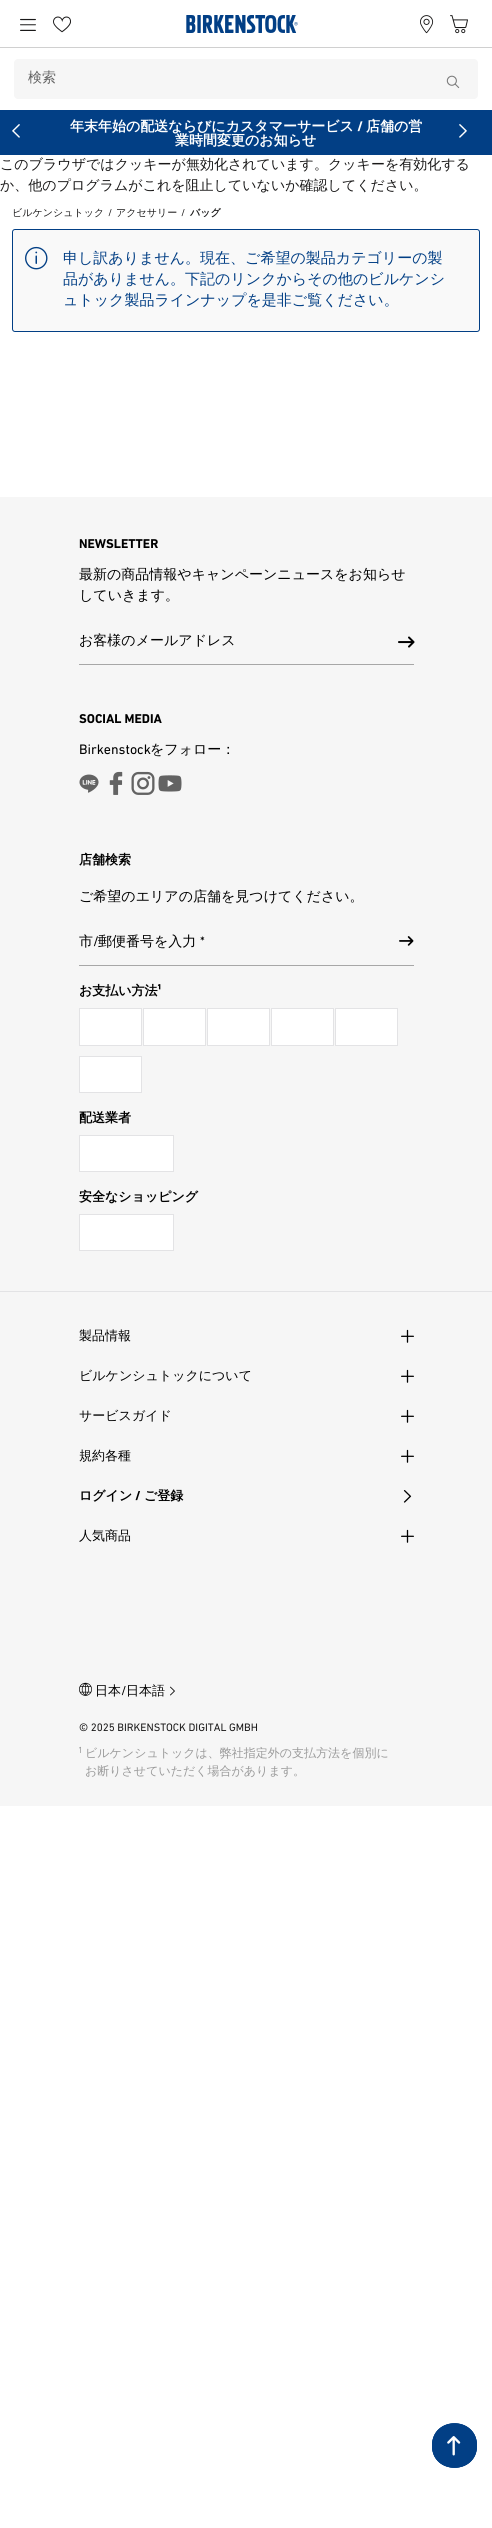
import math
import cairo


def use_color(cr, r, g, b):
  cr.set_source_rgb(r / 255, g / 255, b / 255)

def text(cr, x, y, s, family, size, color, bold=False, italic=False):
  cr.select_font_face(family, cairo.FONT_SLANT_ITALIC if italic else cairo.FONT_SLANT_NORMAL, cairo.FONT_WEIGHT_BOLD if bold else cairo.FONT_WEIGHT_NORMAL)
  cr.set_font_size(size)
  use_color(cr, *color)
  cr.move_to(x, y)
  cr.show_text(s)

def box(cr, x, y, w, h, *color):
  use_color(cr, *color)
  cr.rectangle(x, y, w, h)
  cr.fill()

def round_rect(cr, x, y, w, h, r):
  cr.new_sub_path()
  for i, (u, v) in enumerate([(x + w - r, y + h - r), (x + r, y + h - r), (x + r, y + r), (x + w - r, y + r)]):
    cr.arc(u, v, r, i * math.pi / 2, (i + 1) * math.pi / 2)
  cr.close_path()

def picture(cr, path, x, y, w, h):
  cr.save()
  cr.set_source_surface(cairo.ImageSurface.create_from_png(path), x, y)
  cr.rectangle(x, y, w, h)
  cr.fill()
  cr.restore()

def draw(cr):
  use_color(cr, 255, 255, 255)
  cr.paint()
  box(cr, 0, 47, 492, 1, 208, 208, 208)
  picture(cr, "img_01.png", 20, 18, 16, 13)
  picture(cr, "img_02.png", 53, 16, 18, 17)
  picture(cr, "img_03.png", 186, 15, 112, 18)
  picture(cr, "img_04.png", 420, 15, 14, 19)
  picture(cr, "img_05.png", 450, 15, 18, 19)
  use_color(cr, 246, 246, 246)
  round_rect(cr, 14, 59, 464, 40, 4)
  cr.fill()
  picture(cr, "img_06.png", 446, 75, 14, 14)
  box(cr, 0, 110, 492, 45, 2, 63, 133)
  picture(cr, "img_07.png", 12, 124, 8, 14)
  picture(cr, "img_08.png", 459, 124, 8, 14)
  use_color(cr, 249, 249, 249)
  round_rect(cr, 12.5, 229.5, 467, 102, 2.5)
  cr.fill_preserve()
  use_color(cr, 2, 63, 133)
  cr.set_line_width(1)
  cr.stroke()
  picture(cr, "img_09.png", 25, 246, 23, 24)
  cr.new_path()
  cr.move_to(476.5, 2445.5)
  cr.curve_to(476.5, 2474.5, 432.5, 2474.5, 432.5, 2445.5)
  cr.curve_to(432.5, 2416.5, 476.5, 2416.5, 476.5, 2445.5)
  cr.close_path()
  cr.stroke()
  box(cr, 0, 497, 492, 1309, 246, 246, 246)
  box(cr, 79, 664, 335, 1, 167, 167, 167)
  picture(cr, "img_10.png", 398, 636, 17, 12)
  picture(cr, "img_11.png", 79, 774, 20, 19)
  picture(cr, "img_12.png", 109, 771, 14, 24)
  picture(cr, "img_13.png", 131, 771, 24, 24)
  picture(cr, "img_14.png", 158, 775, 24, 17)
  box(cr, 79, 965, 335, 1, 167, 167, 167)
  picture(cr, "img_15.png", 399, 936, 15, 10)
  use_color(cr, 255, 255, 255)
  cr.rectangle(79.5, 1008.5, 62, 37)
  cr.fill_preserve()
  use_color(cr, 227, 227, 229)
  cr.stroke()
  use_color(cr, 255, 255, 255)
  cr.rectangle(143.5, 1008.5, 62, 37)
  cr.fill_preserve()
  use_color(cr, 227, 227, 229)
  cr.stroke()
  use_color(cr, 255, 255, 255)
  cr.rectangle(207.5, 1008.5, 62, 37)
  cr.fill_preserve()
  use_color(cr, 227, 227, 229)
  cr.stroke()
  use_color(cr, 255, 255, 255)
  cr.rectangle(271.5, 1008.5, 62, 37)
  cr.fill_preserve()
  use_color(cr, 227, 227, 229)
  cr.stroke()
  use_color(cr, 255, 255, 255)
  cr.rectangle(335.5, 1008.5, 62, 37)
  cr.fill_preserve()
  use_color(cr, 227, 227, 229)
  cr.stroke()
  use_color(cr, 255, 255, 255)
  cr.rectangle(79.5, 1056.5, 62, 36)
  cr.fill_preserve()
  use_color(cr, 227, 227, 229)
  cr.stroke()
  use_color(cr, 255, 255, 255)
  cr.rectangle(79.5, 1135.5, 94, 36)
  cr.fill_preserve()
  use_color(cr, 227, 227, 229)
  cr.stroke()
  use_color(cr, 255, 255, 255)
  cr.rectangle(79.5, 1214.5, 94, 36)
  cr.fill_preserve()
  use_color(cr, 227, 227, 229)
  cr.stroke()
  box(cr, 0, 1291, 492, 1, 227, 227, 229)
  picture(cr, "img_16.png", 401, 1329, 13, 14)
  picture(cr, "img_16.png", 401, 1369, 13, 14)
  picture(cr, "img_16.png", 401, 1409, 13, 14)
  picture(cr, "img_16.png", 401, 1449, 13, 14)
  picture(cr, "img_17.png", 403, 1490, 9, 13)
  picture(cr, "img_16.png", 401, 1529, 13, 14)
  picture(cr, "img_18.png", 79, 1682, 13, 14)
  picture(cr, "img_19.png", 170, 1686, 5, 10)
  use_color(cr, 2, 63, 133)
  cr.new_path()
  cr.move_to(477, 2446)
  cr.curve_to(477, 2475, 432, 2475, 432, 2446)
  cr.curve_to(432, 2416, 477, 2416, 477, 2446)
  cr.close_path()
  cr.fill()
  cr.new_path()
  cr.move_to(476.5, 2445.5)
  cr.curve_to(476.5, 2474.5, 432.5, 2474.5, 432.5, 2445.5)
  cr.curve_to(432.5, 2416.5, 476.5, 2416.5, 476.5, 2445.5)
  cr.close_path()
  cr.stroke()
  picture(cr, "img_20.png", 447, 2436, 14, 20)
  text(cr, 28, 82, "検索", "WenQuanYi Zen Hei Medium", 14, (99, 99, 99))
  text(cr, 70, 131, "年末年始の配送ならびにカスタマーサービス", "WenQuanYi Zen Hei", 14, (255, 255, 255), bold=True)
  text(cr, 357, 131, "/", "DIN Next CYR", 14, (255, 255, 255), bold=True)
  text(cr, 366, 131, "店舗の営", "WenQuanYi Zen Hei", 14, (255, 255, 255), bold=True)
  text(cr, 175, 145, "業時間変更のお知らせ", "WenQuanYi Zen Hei", 14, (255, 255, 255), bold=True)
  text(cr, 0, 169, "このブラウザではクッキーが無効化されています。クッキーを有効化する", "WenQuanYi Zen Hei Medium", 14, (26, 25, 25))
  text(cr, 0, 190, "か、他のプログラムがこれを阻止していないか確認してください。", "WenQuanYi Zen Hei Medium", 14, (26, 25, 25))
  text(cr, 12, 216, "ビルケンシュトック", "WenQuanYi Zen Hei Medium", 10, (26, 25, 25))
  text(cr, 108, 216, "/", "DIN Next CYR", 10, (26, 25, 25))
  text(cr, 116, 216, "アクセサリー", "WenQuanYi Zen Hei Medium", 10, (26, 25, 25))
  text(cr, 181, 216, "/", "DIN Next CYR", 10, (26, 25, 25))
  text(cr, 190, 216, "バッグ", "WenQuanYi Zen Hei", 10, (26, 25, 25), bold=True)
  text(cr, 63, 263, "申し訳ありません。現在、ご希望の製品カテゴリーの製", "WenQuanYi Zen Hei Medium", 15, (2, 63, 133))
  text(cr, 63, 284, "品がありません。下記のリンクからその他のビルケンシ", "WenQuanYi Zen Hei Medium", 15, (2, 63, 133))
  text(cr, 63, 305, "ュトック製品ラインナップを是非ご覧ください。", "WenQuanYi Zen Hei Medium", 15, (2, 63, 133))
  text(cr, 79, 548, "NEWSLETTER", "DIN Next CYR", 13, (0, 0, 0), bold=True)
  text(cr, 79, 579, "最新の商品情報やキャンペーンニュースをお知らせ", "WenQuanYi Zen Hei Medium", 14, (0, 0, 0))
  text(cr, 79, 600, "していきます。", "WenQuanYi Zen Hei Medium", 14, (0, 0, 0))
  text(cr, 79, 645, "お客様のメールアドレス", "WenQuanYi Zen Hei Medium", 14, (0, 0, 0))
  text(cr, 79, 723, "SOCIAL MEDIA", "DIN Next CYR", 13, (0, 0, 0), bold=True)
  text(cr, 79, 754, "Birkenstock", "DIN Next CYR", 14, (0, 0, 0))
  text(cr, 150, 754, "をフォロー：", "WenQuanYi Zen Hei Medium", 14, (0, 0, 0))
  text(cr, 79, 864, "店舗検索", "WenQuanYi Zen Hei", 13, (0, 0, 0), bold=True)
  text(cr, 79, 901, "ご希望のエリアの店舗を見つけてください。", "WenQuanYi Zen Hei Medium", 14, (0, 0, 0))
  text(cr, 79, 946, "市", "WenQuanYi Zen Hei Medium", 14, (0, 0, 0))
  text(cr, 93, 946, "/", "DIN Next CYR", 14, (0, 0, 0))
  text(cr, 98, 946, "郵便番号を入力", "WenQuanYi Zen Hei Medium", 14, (0, 0, 0))
  text(cr, 200, 946, "*", "DIN Next CYR", 14, (0, 0, 0))
  text(cr, 79, 995, "お支払い方法", "WenQuanYi Zen Hei", 13, (0, 0, 0), bold=True)
  text(cr, 157, 995, "¹", "DIN Next CYR", 13, (0, 0, 0), bold=True)
  text(cr, 79, 1122, "配送業者", "WenQuanYi Zen Hei", 13, (0, 0, 0), bold=True)
  text(cr, 79, 1201, "安全なショッピング", "WenQuanYi Zen Hei", 13, (0, 0, 0), bold=True)
  text(cr, 79, 1340, "製品情報", "WenQuanYi Zen Hei Medium", 13, (0, 0, 0))
  text(cr, 79, 1380, "ビルケンシュトックについて", "WenQuanYi Zen Hei Medium", 13, (0, 0, 0))
  text(cr, 79, 1420, "サービスガイド", "WenQuanYi Zen Hei Medium", 13, (0, 0, 0))
  text(cr, 79, 1460, "規約各種", "WenQuanYi Zen Hei Medium", 13, (0, 0, 0))
  text(cr, 79, 1500, "ログイン", "WenQuanYi Zen Hei", 13, (0, 0, 0), bold=True)
  text(cr, 135, 1500, "/", "DIN Next CYR", 13, (0, 0, 0), bold=True)
  text(cr, 144, 1500, "ご登録", "WenQuanYi Zen Hei", 13, (0, 0, 0), bold=True)
  text(cr, 79, 1540, "人気商品", "WenQuanYi Zen Hei Medium", 13, (0, 0, 0))
  text(cr, 95, 1695, "日本", "WenQuanYi Zen Hei Medium", 13, (0, 0, 0))
  text(cr, 121, 1695, "/", "DIN Next CYR", 13, (0, 0, 0))
  text(cr, 126, 1695, "日本語", "WenQuanYi Zen Hei Medium", 13, (0, 0, 0))
  text(cr, 79, 1731, "© 2025 BIRKENSTOCK DIGITAL GMBH", "DIN Next CYR", 11, (26, 25, 25))
  text(cr, 78, 1753, "1", "DIN Next CYR", 9, (154, 154, 154))
  text(cr, 85, 1757, "ビルケンシュトックは、弊社指定外の支払方法を個別に", "WenQuanYi Zen Hei Medium", 12, (154, 154, 154))
  text(cr, 85, 1775, "お断りさせていただく場合があります。", "WenQuanYi Zen Hei Medium", 12, (154, 154, 154))


surface = cairo.ImageSurface(cairo.FORMAT_RGB24, 492, 2528)
cr = cairo.Context(surface)
options = cairo.FontOptions()
options.set_hint_metrics(cairo.HINT_METRICS_OFF)
options.set_hint_style(cairo.HINT_STYLE_NONE)
cr.set_font_options(options)
cr.set_miter_limit(4)
draw(cr)
surface.write_to_png("out.png")
